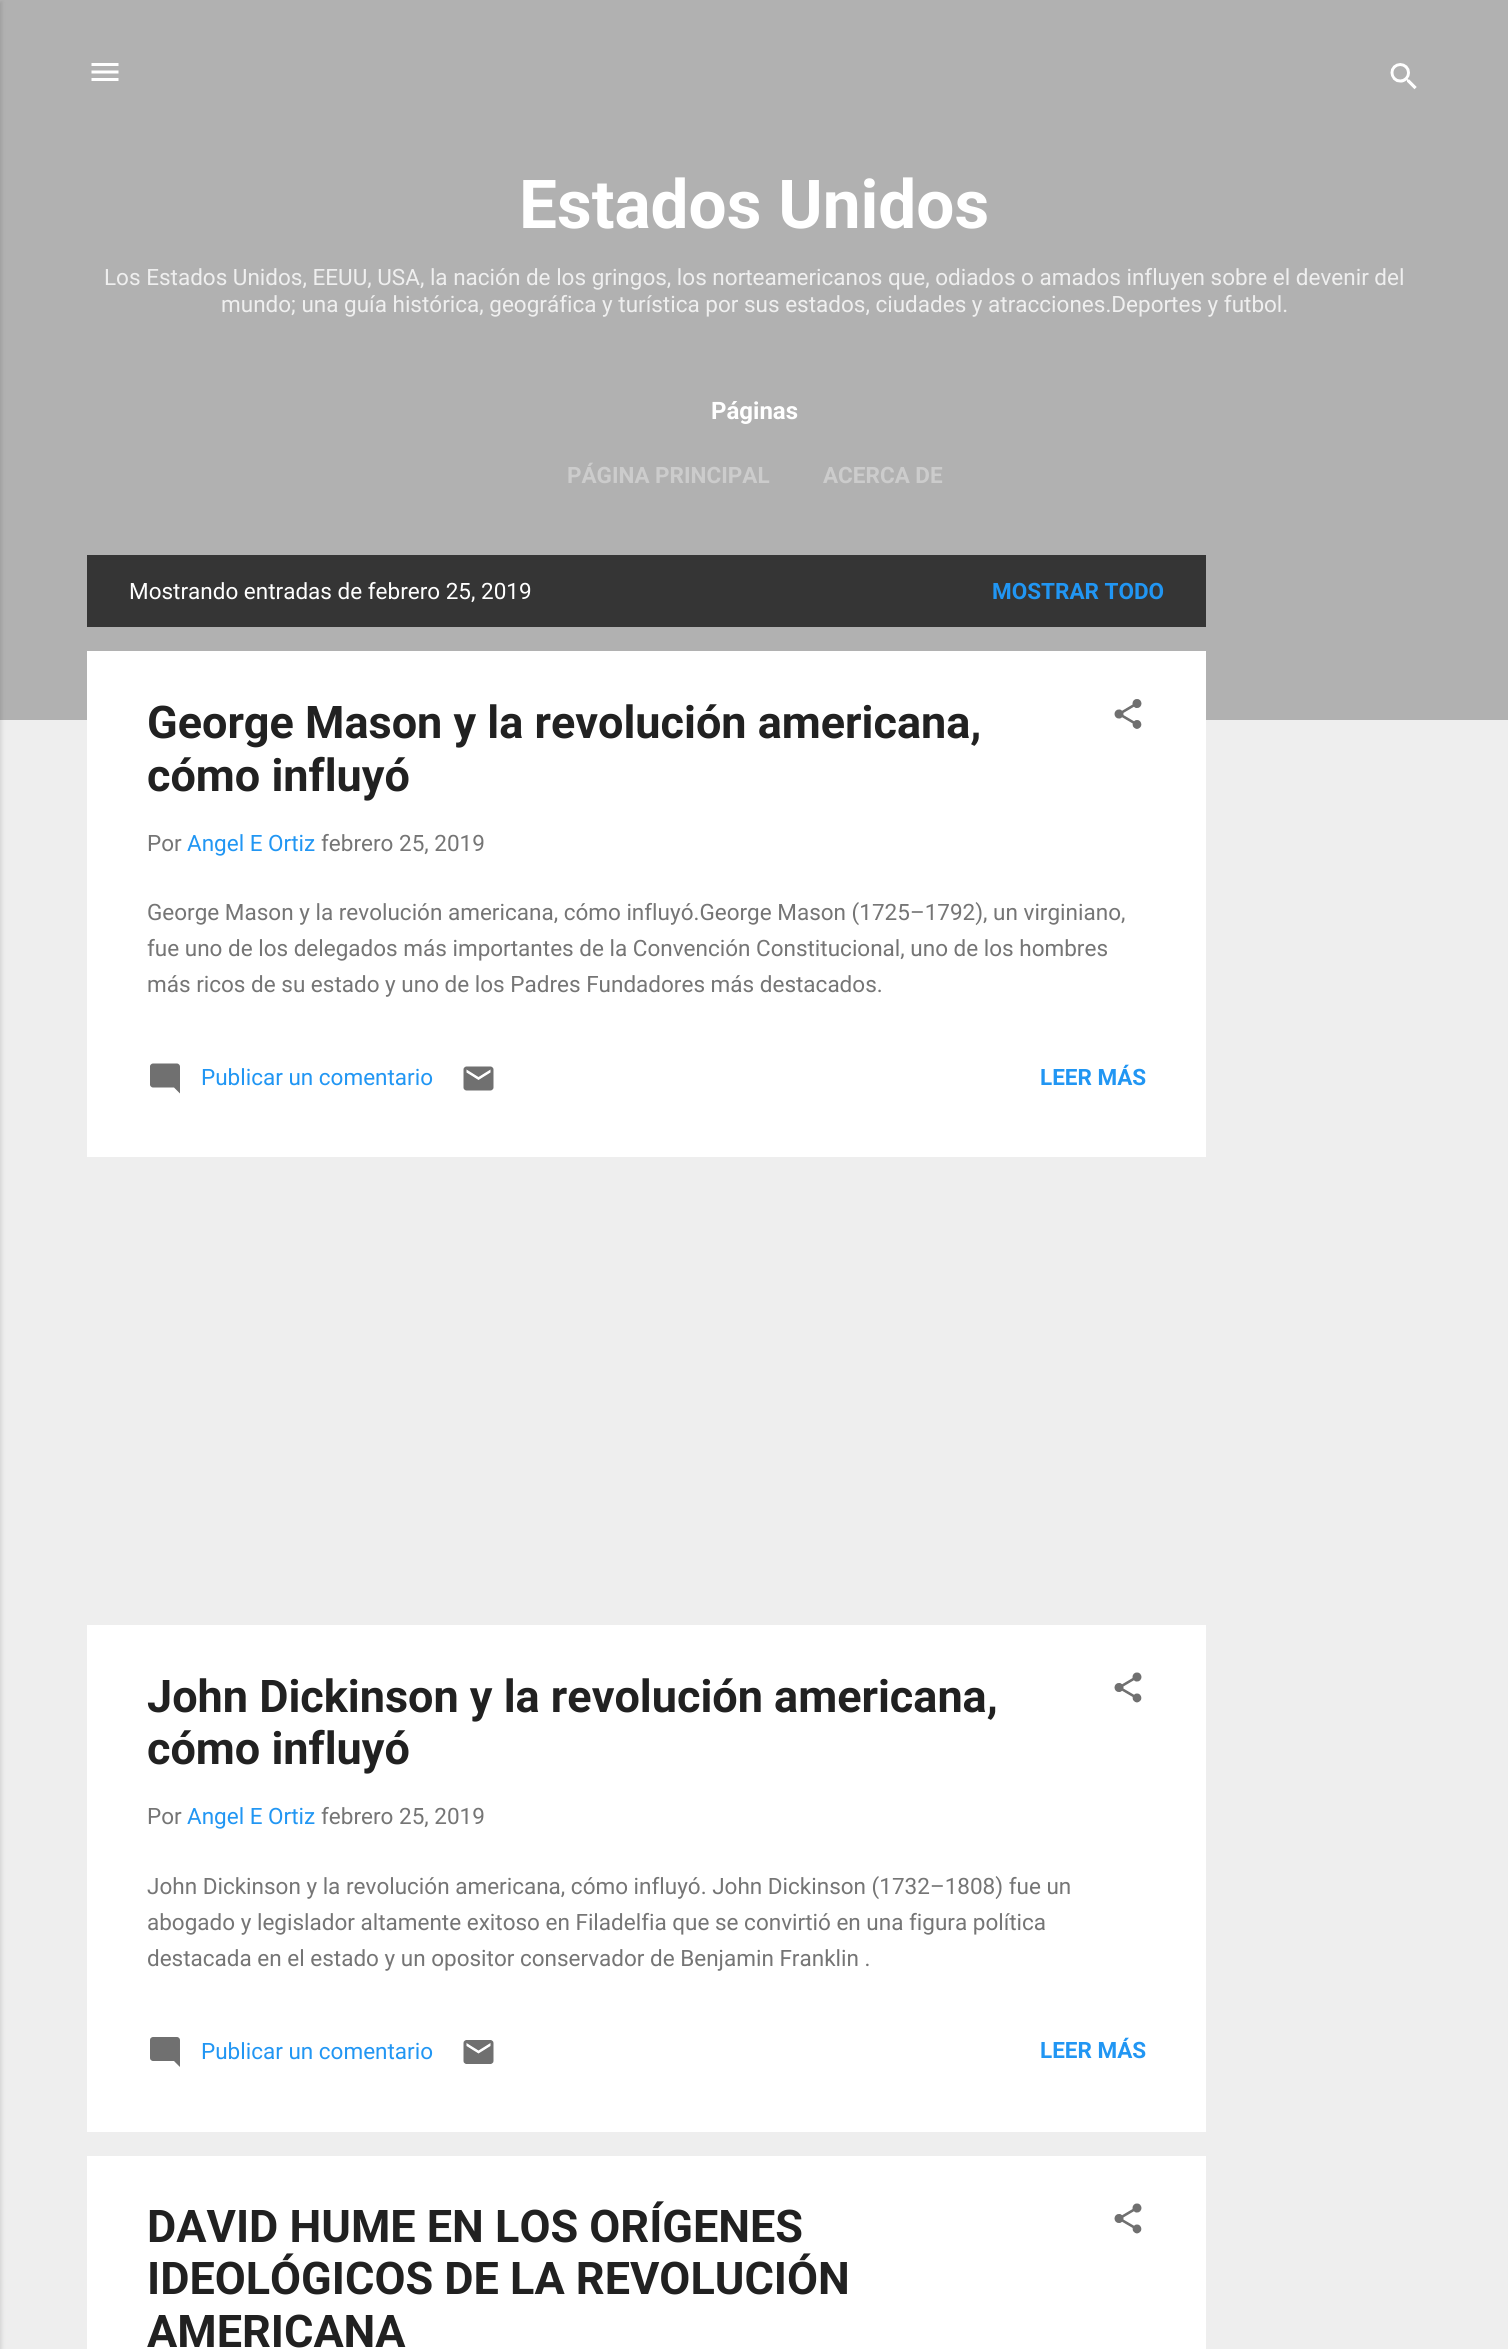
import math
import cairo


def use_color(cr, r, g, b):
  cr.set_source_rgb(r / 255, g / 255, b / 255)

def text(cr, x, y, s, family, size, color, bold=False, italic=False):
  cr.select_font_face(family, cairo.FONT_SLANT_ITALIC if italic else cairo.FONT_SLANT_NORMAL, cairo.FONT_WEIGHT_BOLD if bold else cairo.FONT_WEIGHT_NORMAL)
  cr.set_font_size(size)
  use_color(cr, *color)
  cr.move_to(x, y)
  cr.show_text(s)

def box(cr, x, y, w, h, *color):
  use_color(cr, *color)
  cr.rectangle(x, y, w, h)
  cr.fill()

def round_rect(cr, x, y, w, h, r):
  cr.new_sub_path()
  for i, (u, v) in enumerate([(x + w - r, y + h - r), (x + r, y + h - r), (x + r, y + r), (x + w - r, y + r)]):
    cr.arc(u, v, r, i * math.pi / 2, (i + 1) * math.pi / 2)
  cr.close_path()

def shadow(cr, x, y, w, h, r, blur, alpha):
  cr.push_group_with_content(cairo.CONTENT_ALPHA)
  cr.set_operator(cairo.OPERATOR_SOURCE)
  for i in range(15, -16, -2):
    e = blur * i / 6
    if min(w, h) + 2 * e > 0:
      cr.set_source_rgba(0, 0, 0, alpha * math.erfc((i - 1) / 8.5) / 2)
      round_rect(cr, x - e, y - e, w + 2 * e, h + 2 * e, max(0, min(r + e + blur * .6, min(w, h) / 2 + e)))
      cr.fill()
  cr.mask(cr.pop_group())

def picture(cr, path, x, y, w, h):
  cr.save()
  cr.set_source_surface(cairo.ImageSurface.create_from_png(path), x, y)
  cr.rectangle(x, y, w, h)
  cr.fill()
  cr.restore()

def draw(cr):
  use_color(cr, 238, 238, 238)
  cr.paint()
  box(cr, 0, 0, 1508, 720, 177, 177, 177)
  use_color(cr, 0, 0, 0)
  shadow(cr, -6, 2, 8, 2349, 0, 2, 0.1)
  picture(cr, "img_01.png", 91, 63, 28, 18)
  picture(cr, "img_02.png", 1390, 63, 27, 27)
  box(cr, 87, 555, 1119, 72, 53, 53, 53)
  box(cr, 87, 651, 1119, 506, 255, 255, 255)
  picture(cr, "img_03.png", 1114, 699, 28, 30)
  picture(cr, "img_04.png", 150, 1063, 30, 31)
  picture(cr, "img_05.png", 463, 1066, 31, 25)
  box(cr, 87, 1625, 1119, 507, 255, 255, 255)
  picture(cr, "img_06.png", 1114, 1672, 28, 31)
  picture(cr, "img_07.png", 150, 2037, 30, 30)
  picture(cr, "img_08.png", 463, 2040, 31, 24)
  box(cr, 87, 2156, 1119, 193, 255, 255, 255)
  picture(cr, "img_06.png", 1114, 2203, 28, 31)
  text(cr, 519, 228, "Estados Unidos", "Roboto", 67.5, (255, 255, 255), bold=True)
  text(cr, 104, 285, "Los Estados Unidos, EEUU, USA, la nación de los gringos, los norteamericanos que, odiados o amados influyen sobre el devenir del", "Roboto", 22.5, (239, 239, 239))
  text(cr, 221, 312, "mundo; una guía histórica, geográfica y turística por sus estados, ciudades y atracciones.Deportes y futbol.", "Roboto", 22.5, (239, 239, 239))
  text(cr, 711, 419, "Páginas", "Roboto", 24, (255, 255, 255), bold=True)
  text(cr, 567, 483, "PÁGINA PRINCIPAL", "Roboto", 22.5, (204, 204, 204), bold=True)
  text(cr, 823, 483, "ACERCA DE", "Roboto", 22.5, (204, 204, 204), bold=True)
  text(cr, 129, 599, "Mostrando entradas de febrero 25, 2019", "Roboto", 22.5, (255, 255, 255))
  text(cr, 992, 599, "MOSTRAR TODO", "Roboto", 22.5, (33, 150, 243), bold=True)
  text(cr, 147, 738, "George Mason y la revolución americana,", "Roboto", 45, (33, 33, 33), bold=True)
  text(cr, 147, 791, "cómo influyó", "Roboto", 45, (33, 33, 33), bold=True)
  text(cr, 147, 851, "Por", "Roboto", 22.5, (117, 117, 117))
  text(cr, 187, 851, "Angel E Ortiz", "Roboto", 22.5, (33, 150, 243))
  text(cr, 321, 851, "febrero 25, 2019", "Roboto", 22.5, (117, 117, 117))
  text(cr, 147, 920, "George Mason y la revolución americana, cómo influyó.George Mason (1725–1792), un virginiano,", "Roboto", 22.5, (117, 117, 117))
  text(cr, 147, 956, "fue uno de los delegados más importantes de la Convención Constitucional, uno de los hombres", "Roboto", 22.5, (117, 117, 117))
  text(cr, 147, 992, "más ricos de su estado y uno de los Padres Fundadores más destacados.", "Roboto", 22.5, (117, 117, 117))
  text(cr, 201, 1085, "Publicar un comentario", "Roboto", 22.5, (33, 150, 243))
  text(cr, 1040, 1085, "LEER MÁS", "Roboto", 22.5, (33, 150, 243), bold=True)
  text(cr, 147, 1712, "John Dickinson y la revolución americana,", "Roboto", 45, (33, 33, 33), bold=True)
  text(cr, 147, 1764, "cómo influyó", "Roboto", 45, (33, 33, 33), bold=True)
  text(cr, 147, 1824, "Por", "Roboto", 22.5, (117, 117, 117))
  text(cr, 187, 1824, "Angel E Ortiz", "Roboto", 22.5, (33, 150, 243))
  text(cr, 321, 1824, "febrero 25, 2019", "Roboto", 22.5, (117, 117, 117))
  text(cr, 147, 1894, "John Dickinson y la revolución americana, cómo influyó. John Dickinson (1732–1808) fue un", "Roboto", 22.5, (117, 117, 117))
  text(cr, 147, 1930, "abogado y legislador altamente exitoso en Filadelfia que se convirtió en una figura política", "Roboto", 22.5, (117, 117, 117))
  text(cr, 147, 1966, "destacada en el estado y un opositor conservador de Benjamin Franklin .", "Roboto", 22.5, (117, 117, 117))
  text(cr, 201, 2059, "Publicar un comentario", "Roboto", 22.5, (33, 150, 243))
  text(cr, 1040, 2058, "LEER MÁS", "Roboto", 22.5, (33, 150, 243), bold=True)
  text(cr, 147, 2242, "DAVID HUME EN LOS ORÍGENES", "Roboto", 45, (33, 33, 33), bold=True)
  text(cr, 147, 2294, "IDEOLÓGICOS DE LA REVOLUCIÓN", "Roboto", 45, (33, 33, 33), bold=True)
  text(cr, 147, 2347, "AMERICANA", "Roboto", 45, (33, 33, 33), bold=True)


surface = cairo.ImageSurface(cairo.FORMAT_RGB24, 1508, 2349)
cr = cairo.Context(surface)
options = cairo.FontOptions()
options.set_hint_metrics(cairo.HINT_METRICS_OFF)
options.set_hint_style(cairo.HINT_STYLE_NONE)
cr.set_font_options(options)
cr.set_miter_limit(4)
draw(cr)
surface.write_to_png("out.png")
